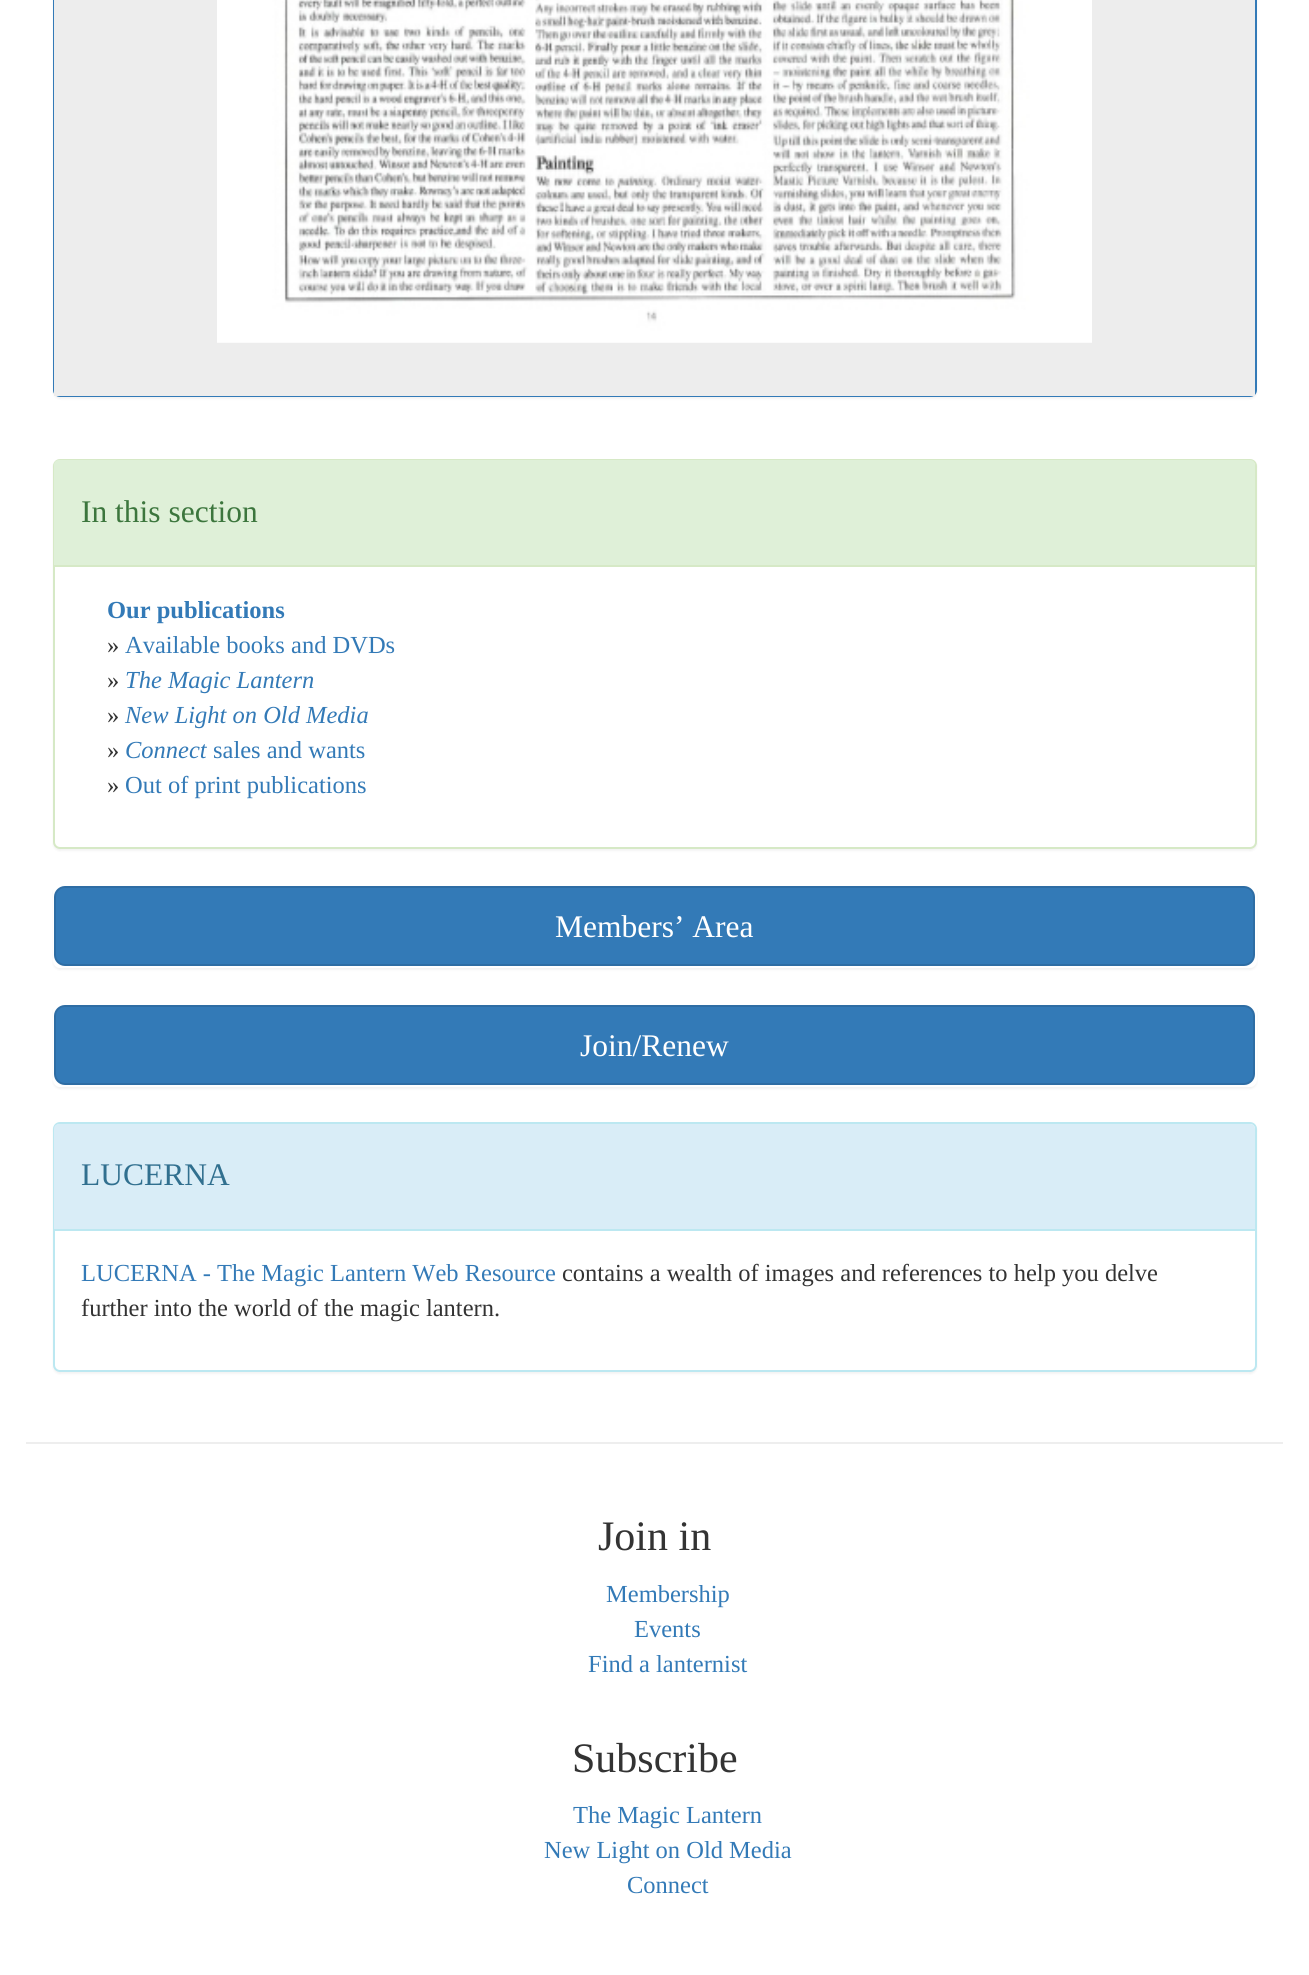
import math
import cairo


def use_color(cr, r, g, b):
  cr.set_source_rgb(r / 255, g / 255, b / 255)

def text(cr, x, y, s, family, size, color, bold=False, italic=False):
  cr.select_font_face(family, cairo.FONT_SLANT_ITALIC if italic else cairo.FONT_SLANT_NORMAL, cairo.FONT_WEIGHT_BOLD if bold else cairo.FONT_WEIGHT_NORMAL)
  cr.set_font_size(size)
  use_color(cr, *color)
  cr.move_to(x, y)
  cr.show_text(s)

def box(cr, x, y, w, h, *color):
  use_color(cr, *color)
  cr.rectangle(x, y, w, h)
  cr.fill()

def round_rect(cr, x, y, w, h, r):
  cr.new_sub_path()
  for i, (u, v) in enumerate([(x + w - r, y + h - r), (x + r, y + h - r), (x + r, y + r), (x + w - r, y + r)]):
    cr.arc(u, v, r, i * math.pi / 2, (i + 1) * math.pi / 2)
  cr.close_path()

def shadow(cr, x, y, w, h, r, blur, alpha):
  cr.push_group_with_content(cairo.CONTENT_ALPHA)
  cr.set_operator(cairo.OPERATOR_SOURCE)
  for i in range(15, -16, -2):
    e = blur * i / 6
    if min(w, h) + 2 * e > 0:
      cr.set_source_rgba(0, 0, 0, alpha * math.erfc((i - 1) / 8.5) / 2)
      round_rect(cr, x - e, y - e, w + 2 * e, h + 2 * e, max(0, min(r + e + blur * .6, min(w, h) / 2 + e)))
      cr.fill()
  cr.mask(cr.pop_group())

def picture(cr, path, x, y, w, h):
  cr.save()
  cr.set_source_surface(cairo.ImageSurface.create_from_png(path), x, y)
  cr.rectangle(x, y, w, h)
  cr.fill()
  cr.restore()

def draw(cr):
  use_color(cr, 255, 255, 255)
  cr.paint()
  use_color(cr, 0, 0, 0)
  shadow(cr, 53, -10, 1204, 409, 7, 1, 0.05)
  round_rect(cr, 54, -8, 1202, 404, 6)
  use_color(cr, 51, 122, 183)
  cr.stroke()
  box(cr, 54, 0, 1201, 396, 237, 237, 237)
  picture(cr, "img_01.png", 217, 0, 875, 343)
  use_color(cr, 0, 0, 0)
  shadow(cr, 53, 460, 1204, 391, 7, 1, 0.05)
  use_color(cr, 255, 255, 255)
  round_rect(cr, 54, 460, 1202, 388, 6)
  cr.fill_preserve()
  use_color(cr, 214, 233, 198)
  cr.stroke()
  use_color(cr, 223, 240, 216)
  cr.new_path()
  cr.move_to(59, 460)
  cr.line_to(1250, 460)
  cr.curve_to(1253, 460, 1255, 462, 1255, 465)
  cr.line_to(1255, 567)
  cr.line_to(54, 567)
  cr.line_to(54, 465)
  cr.curve_to(54, 462, 56, 460, 59, 460)
  cr.close_path()
  cr.fill()
  box(cr, 54, 565, 1201, 2, 214, 233, 198)
  use_color(cr, 0, 0, 0)
  shadow(cr, 53, 886, 1204, 84, 7, 1, 0.05)
  use_color(cr, 255, 255, 255)
  round_rect(cr, 53, 884, 1204, 84, 7)
  cr.fill()
  use_color(cr, 51, 122, 183)
  round_rect(cr, 55, 887, 1199, 78, 10)
  cr.fill_preserve()
  use_color(cr, 46, 109, 164)
  cr.stroke()
  use_color(cr, 0, 0, 0)
  shadow(cr, 53, 1005, 1204, 84, 7, 1, 0.05)
  use_color(cr, 255, 255, 255)
  round_rect(cr, 53, 1003, 1204, 84, 7)
  cr.fill()
  use_color(cr, 51, 122, 183)
  round_rect(cr, 55, 1006, 1199, 78, 10)
  cr.fill_preserve()
  use_color(cr, 46, 109, 164)
  cr.stroke()
  use_color(cr, 0, 0, 0)
  shadow(cr, 53, 1124, 1204, 250, 7, 1, 0.05)
  use_color(cr, 255, 255, 255)
  round_rect(cr, 54, 1123, 1202, 248, 6)
  cr.fill_preserve()
  use_color(cr, 188, 232, 241)
  cr.stroke()
  use_color(cr, 217, 237, 247)
  cr.new_path()
  cr.move_to(59, 1124)
  cr.line_to(1250, 1124)
  cr.curve_to(1253, 1124, 1255, 1126, 1255, 1129)
  cr.line_to(1255, 1230)
  cr.line_to(54, 1230)
  cr.line_to(54, 1129)
  cr.curve_to(54, 1126, 56, 1124, 59, 1124)
  cr.close_path()
  cr.fill()
  box(cr, 54, 1229, 1201, 2, 188, 232, 241)
  box(cr, 26, 1442, 1257, 2, 238, 238, 238)
  text(cr, 81, 522, "In this section", "Liberation Serif", 31.5, (60, 118, 61))
  text(cr, 107, 618, "Our publications", "Liberation Serif", 24.5, (51, 122, 183), bold=True)
  text(cr, 107, 653, "»", "Liberation Serif", 24.5, (51, 51, 51))
  text(cr, 125, 653, "Available books and DVDs", "Liberation Serif", 24.5, (51, 122, 183))
  text(cr, 107, 688, "»", "Liberation Serif", 24.5, (51, 51, 51))
  text(cr, 125, 688, "The Magic Lantern", "Liberation Serif", 24.5, (51, 122, 183), italic=True)
  text(cr, 107, 723, "»", "Liberation Serif", 24.5, (51, 51, 51))
  text(cr, 125, 723, "New Light on Old Media", "Liberation Serif", 24.5, (51, 122, 183), italic=True)
  text(cr, 107, 758, "»", "Liberation Serif", 24.5, (51, 51, 51))
  text(cr, 125, 758, "Connect", "Liberation Serif", 24.5, (51, 122, 183), italic=True)
  text(cr, 213, 758, "sales and wants", "Liberation Serif", 24.5, (51, 122, 183))
  text(cr, 107, 793, "»", "Liberation Serif", 24.5, (51, 51, 51))
  text(cr, 125, 793, "Out of print publications", "Liberation Serif", 24.5, (51, 122, 183))
  text(cr, 555, 937, "Members’ Area", "Liberation Serif", 31.5, (255, 255, 255))
  text(cr, 580, 1056, "Join/Renew", "Liberation Serif", 31.5, (255, 255, 255))
  text(cr, 81, 1185, "LUCERNA", "Liberation Serif", 31.5, (49, 112, 143))
  text(cr, 81, 1281, "LUCERNA - The Magic Lantern Web Resource", "Liberation Serif", 24.5, (51, 122, 183))
  text(cr, 562, 1281, "contains a wealth of images and references to help you delve", "Liberation Serif", 24.5, (51, 51, 51))
  text(cr, 81, 1316, "further into the world of the magic lantern.", "Liberation Serif", 24.5, (51, 51, 51))
  text(cr, 598, 1550, "Join in", "Liberation Serif", 42, (51, 51, 51))
  text(cr, 606, 1602, "Membership", "Liberation Serif", 24.5, (51, 122, 183))
  text(cr, 634, 1637, "Events", "Liberation Serif", 24.5, (51, 122, 183))
  text(cr, 588, 1672, "Find a lanternist", "Liberation Serif", 24.5, (51, 122, 183))
  text(cr, 572, 1772, "Subscribe", "Liberation Serif", 42, (51, 51, 51))
  text(cr, 573, 1823, "The Magic Lantern", "Liberation Serif", 24.5, (51, 122, 183))
  text(cr, 544, 1858, "New Light on Old Media", "Liberation Serif", 24.5, (51, 122, 183))
  text(cr, 627, 1893, "Connect", "Liberation Serif", 24.5, (51, 122, 183))


surface = cairo.ImageSurface(cairo.FORMAT_RGB24, 1309, 1975)
cr = cairo.Context(surface)
options = cairo.FontOptions()
options.set_hint_metrics(cairo.HINT_METRICS_OFF)
options.set_hint_style(cairo.HINT_STYLE_NONE)
cr.set_font_options(options)
cr.set_miter_limit(4)
draw(cr)
surface.write_to_png("out.png")
